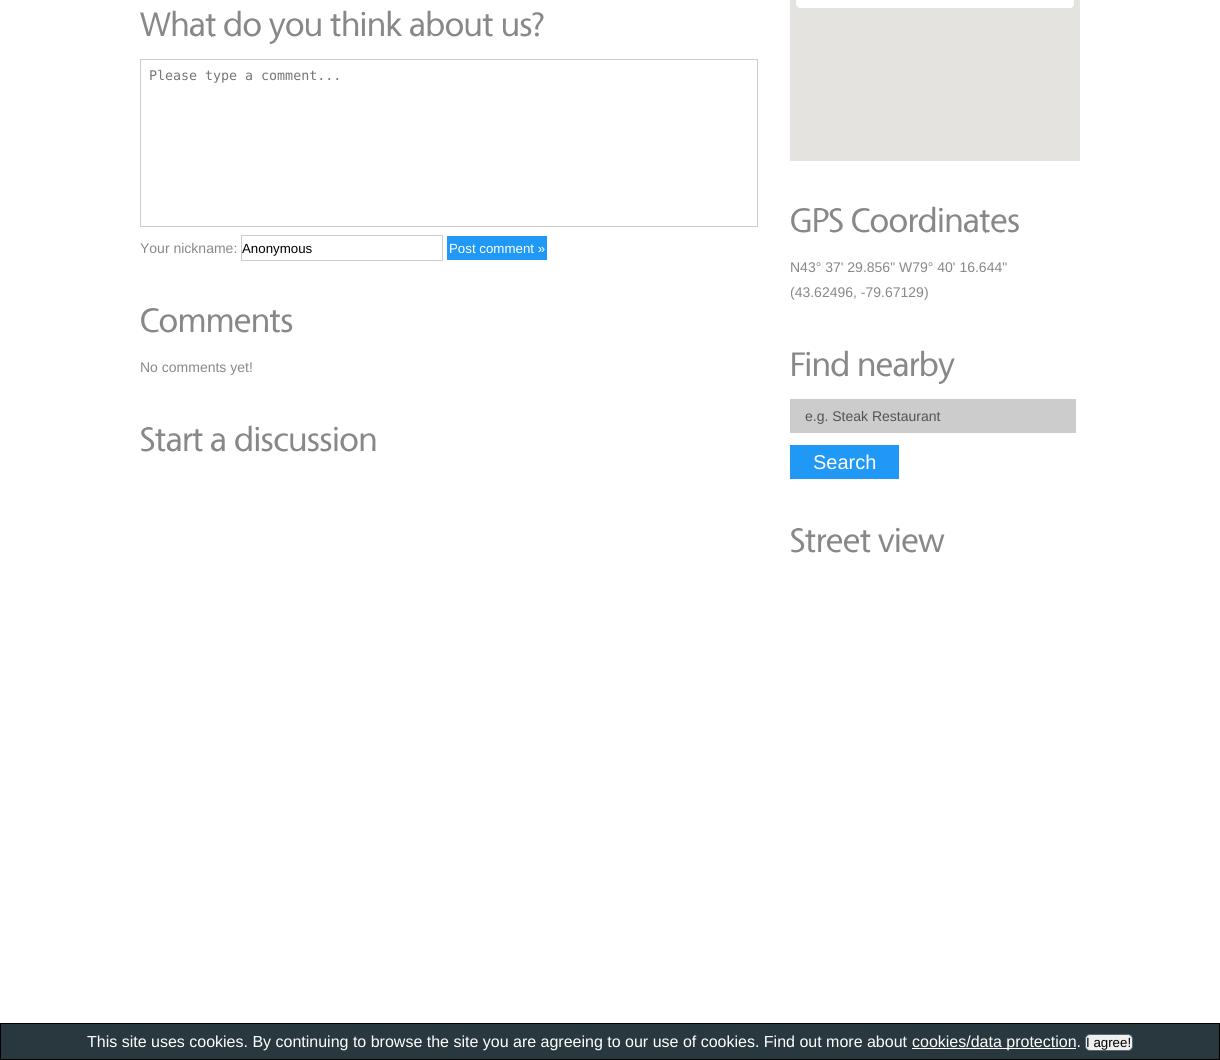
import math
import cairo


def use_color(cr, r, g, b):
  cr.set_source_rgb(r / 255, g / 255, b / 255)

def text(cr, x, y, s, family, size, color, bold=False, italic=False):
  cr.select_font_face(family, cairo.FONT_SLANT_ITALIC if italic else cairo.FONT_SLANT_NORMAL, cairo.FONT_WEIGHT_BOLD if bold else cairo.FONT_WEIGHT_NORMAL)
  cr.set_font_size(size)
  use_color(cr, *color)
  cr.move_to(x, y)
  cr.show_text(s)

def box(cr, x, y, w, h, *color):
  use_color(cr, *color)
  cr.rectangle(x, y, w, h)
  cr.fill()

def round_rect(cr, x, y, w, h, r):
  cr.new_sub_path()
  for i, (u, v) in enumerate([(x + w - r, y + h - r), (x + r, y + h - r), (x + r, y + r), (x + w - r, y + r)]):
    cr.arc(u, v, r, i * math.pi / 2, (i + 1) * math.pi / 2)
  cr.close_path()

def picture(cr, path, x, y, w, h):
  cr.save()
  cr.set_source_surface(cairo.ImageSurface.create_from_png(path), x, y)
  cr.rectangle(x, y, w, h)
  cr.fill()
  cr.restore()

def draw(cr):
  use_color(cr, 255, 255, 255)
  cr.paint()
  picture(cr, "img_01.png", 140, 10, 76, 27)
  picture(cr, "img_02.png", 224, 10, 37, 27)
  picture(cr, "img_03.png", 269, 18, 52, 26)
  picture(cr, "img_04.png", 330, 10, 72, 27)
  picture(cr, "img_05.png", 410, 10, 83, 27)
  picture(cr, "img_06.png", 503, 12, 41, 25)
  cr.rectangle(140.5, 59.5, 617, 167)
  use_color(cr, 204, 204, 204)
  cr.set_line_width(1)
  cr.stroke()
  cr.rectangle(241.5, 235.5, 201, 25)
  cr.stroke()
  box(cr, 447, 236, 100, 24, 32, 152, 245)
  picture(cr, "img_07.png", 141, 308, 152, 25)
  picture(cr, "img_08.png", 141, 427, 62, 25)
  picture(cr, "img_09.png", 211, 433, 14, 19)
  picture(cr, "img_10.png", 235, 425, 141, 27)
  box(cr, 790, 0, 290, 161, 229, 227, 223)
  use_color(cr, 255, 255, 255)
  round_rect(cr, 795, -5, 280, 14, 5)
  cr.fill()
  round_rect(cr, 795.5, -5.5, 279, 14, 4.5)
  cr.set_source_rgba(0, 0, 0, 0.12)
  cr.stroke()
  picture(cr, "img_11.png", 791, 208, 52, 25)
  picture(cr, "img_12.png", 852, 206, 167, 27)
  picture(cr, "img_13.png", 792, 350, 56, 27)
  picture(cr, "img_14.png", 859, 350, 96, 34)
  box(cr, 790, 399, 286, 34, 204, 204, 204)
  box(cr, 790, 445, 109, 34, 32, 152, 245)
  picture(cr, "img_15.png", 791, 528, 80, 25)
  picture(cr, "img_16.png", 878, 527, 67, 26)
  use_color(cr, 41, 56, 63)
  cr.rectangle(0.5, 1023.5, 1219, 36)
  cr.fill_preserve()
  use_color(cr, 0, 0, 0)
  cr.stroke()
  box(cr, 912, 1048, 164, 1, 255, 255, 255)
  use_color(cr, 239, 239, 239)
  round_rect(cr, 1085.5, 1034.5, 47, 16, 4.5)
  cr.fill_preserve()
  use_color(cr, 83, 107, 120)
  cr.stroke()
  text(cr, 149, 80, "Please type a comment...", "DejaVu Sans Mono", 13.3, (117, 117, 117))
  text(cr, 140, 253, "Your nickname:", "Liberation Sans", 14, (136, 136, 136))
  text(cr, 242, 253, "Anonymous", "Liberation Sans", 13.3, (0, 0, 0))
  text(cr, 449, 253, "Post comment »", "Liberation Sans", 13.3, (255, 255, 255))
  text(cr, 140, 372, "No comments yet!", "Liberation Sans", 14, (136, 136, 136))
  text(cr, 790, 272, "N43° 37' 29.856\" W79° 40' 16.644\"", "Liberation Sans", 14, (136, 136, 136))
  text(cr, 790, 297, "(43.62496, -79.67129)", "Liberation Sans", 14, (136, 136, 136))
  text(cr, 805, 421, "e.g. Steak Restaurant", "Liberation Sans", 14, (83, 83, 83))
  text(cr, 813, 469, "Search", "Liberation Sans", 20, (255, 255, 255))
  text(cr, 87, 1047, "This site uses cookies. By continuing to browse the site you are agreeing to our use of cookies. Find out more about", "Liberation Sans", 16, (255, 255, 255))
  text(cr, 912, 1047, "cookies/data protection.", "Liberation Sans", 16, (255, 255, 255))
  text(cr, 1086, 1047, "I agree!", "Liberation Sans", 13.3, (0, 0, 0))


surface = cairo.ImageSurface(cairo.FORMAT_RGB24, 1220, 1060)
cr = cairo.Context(surface)
options = cairo.FontOptions()
options.set_hint_metrics(cairo.HINT_METRICS_OFF)
options.set_hint_style(cairo.HINT_STYLE_NONE)
cr.set_font_options(options)
cr.set_miter_limit(4)
draw(cr)
surface.write_to_png("out.png")
